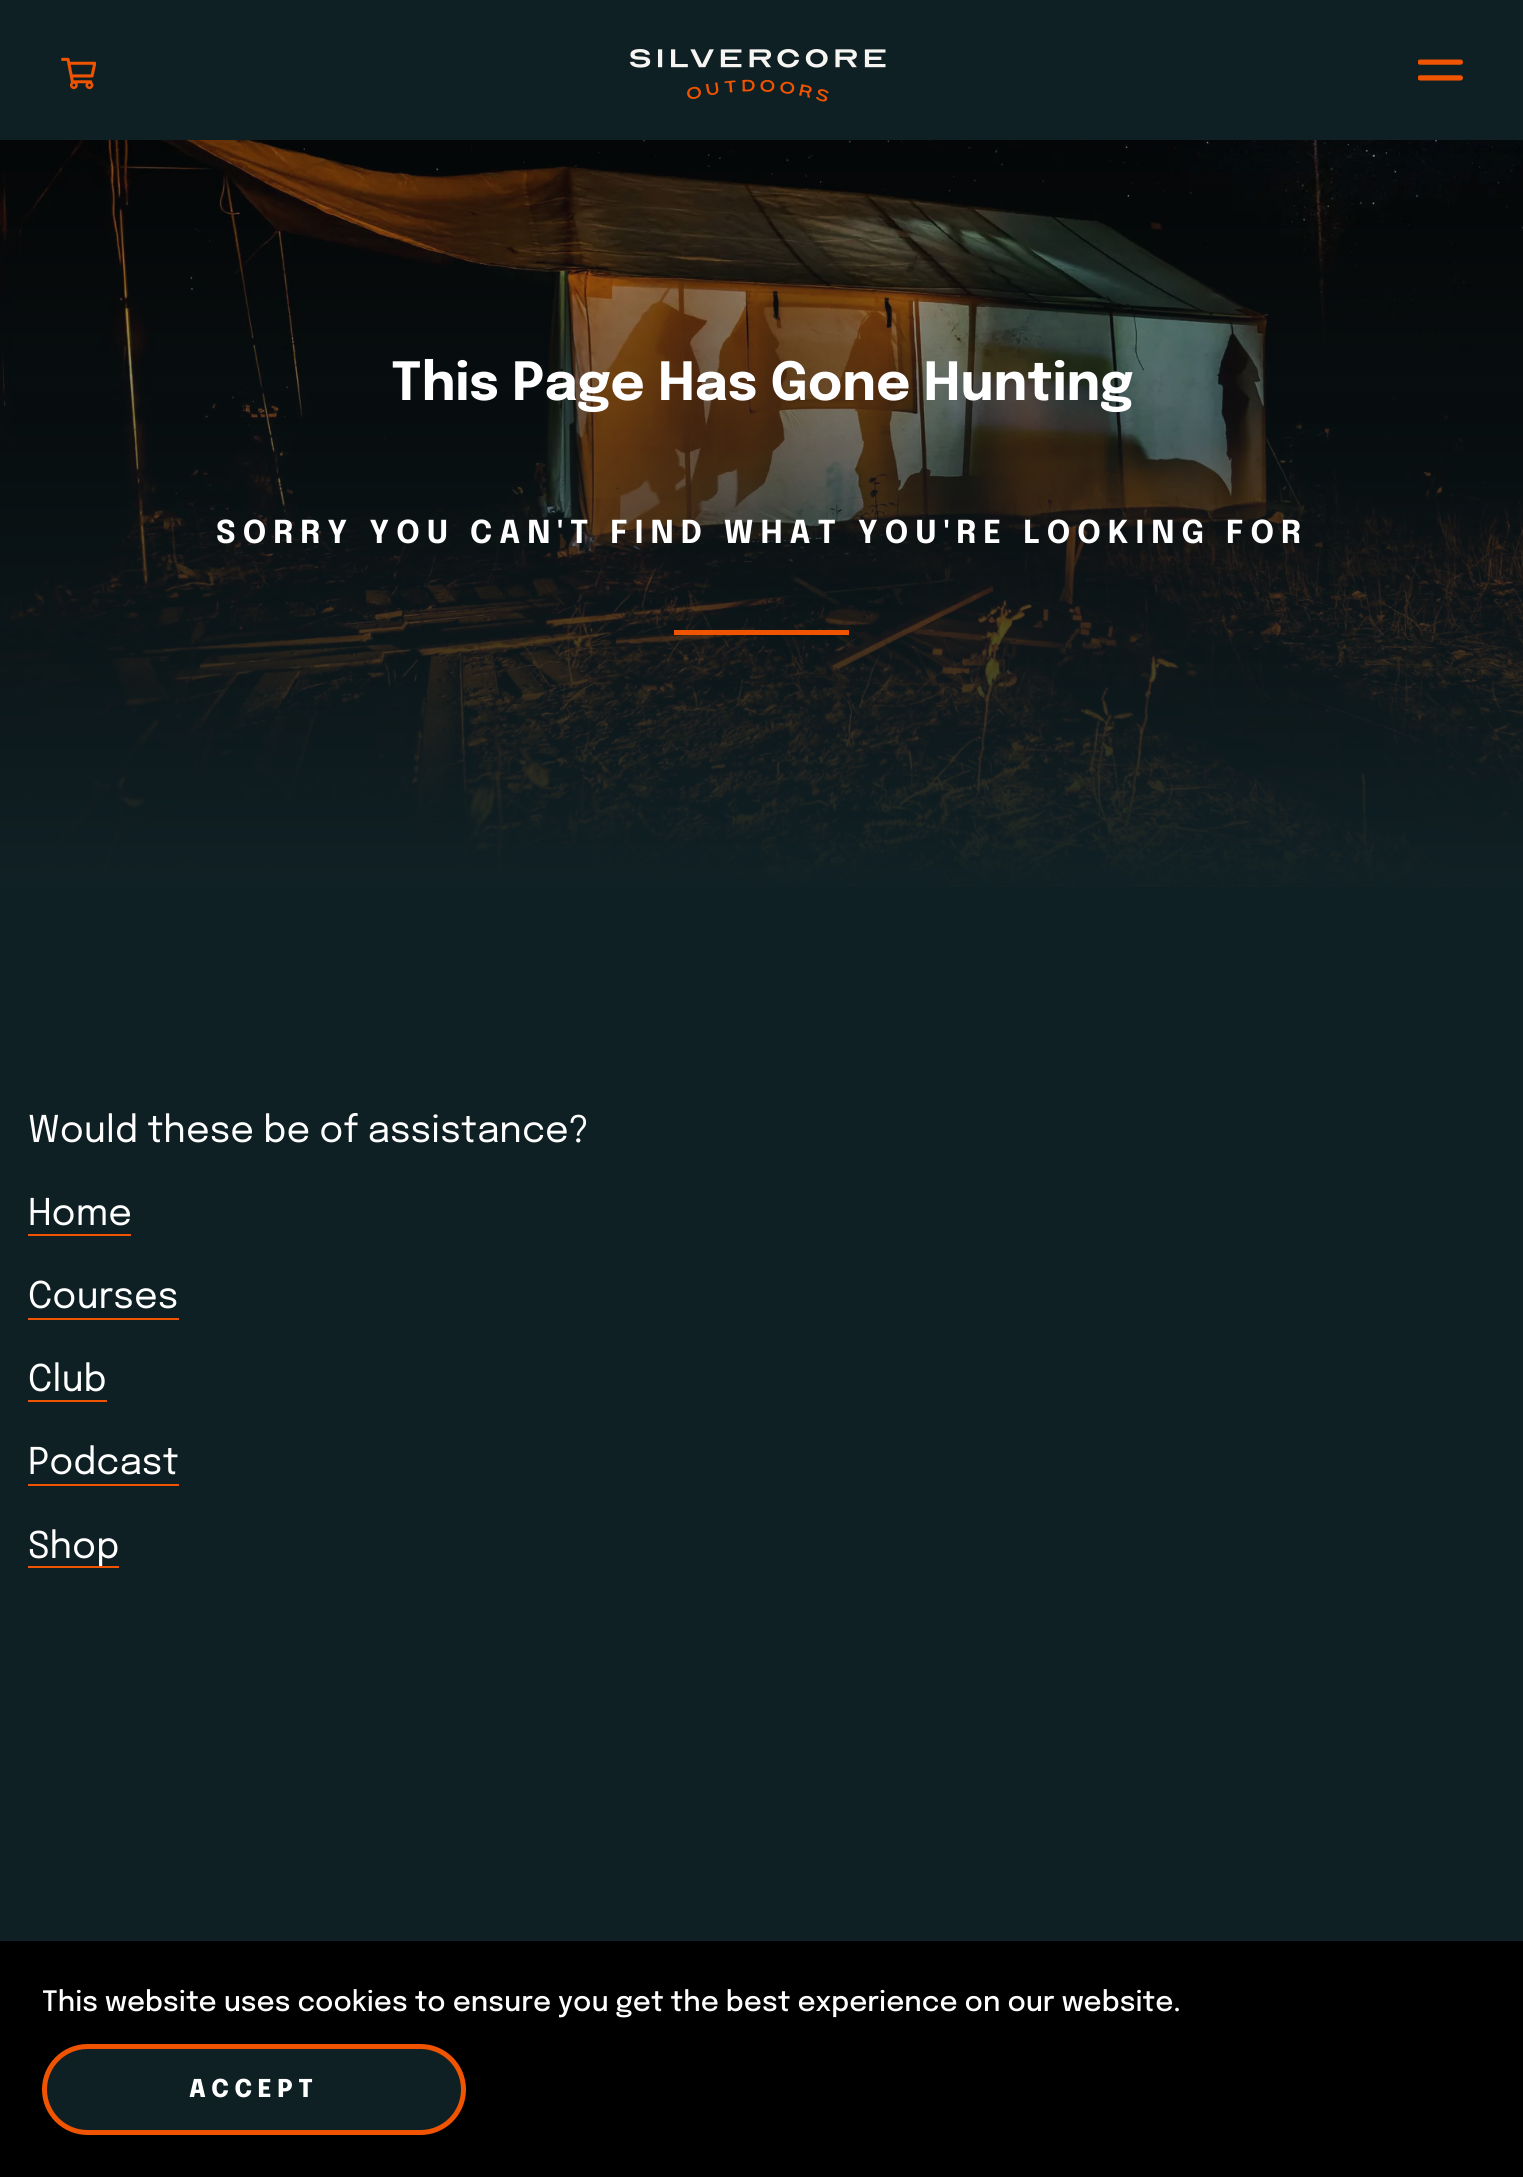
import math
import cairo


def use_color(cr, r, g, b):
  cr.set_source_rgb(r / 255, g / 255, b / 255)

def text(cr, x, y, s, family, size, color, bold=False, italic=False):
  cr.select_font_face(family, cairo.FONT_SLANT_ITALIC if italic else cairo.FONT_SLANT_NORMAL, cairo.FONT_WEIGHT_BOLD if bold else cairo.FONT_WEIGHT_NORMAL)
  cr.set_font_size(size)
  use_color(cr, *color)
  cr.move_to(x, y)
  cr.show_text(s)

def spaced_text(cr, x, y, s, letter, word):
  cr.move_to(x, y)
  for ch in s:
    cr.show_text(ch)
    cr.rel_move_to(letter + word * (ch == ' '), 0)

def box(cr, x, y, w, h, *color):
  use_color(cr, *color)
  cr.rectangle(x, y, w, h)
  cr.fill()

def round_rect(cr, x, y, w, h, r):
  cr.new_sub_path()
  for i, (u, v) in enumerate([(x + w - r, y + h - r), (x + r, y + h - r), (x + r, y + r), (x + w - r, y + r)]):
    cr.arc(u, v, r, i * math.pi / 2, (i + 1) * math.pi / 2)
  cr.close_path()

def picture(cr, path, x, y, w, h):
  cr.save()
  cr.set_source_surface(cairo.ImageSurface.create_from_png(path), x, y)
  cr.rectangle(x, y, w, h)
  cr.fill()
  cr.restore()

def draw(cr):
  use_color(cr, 15, 32, 36)
  cr.paint()
  picture(cr, "img_01.png", 61, 57, 35, 33)
  picture(cr, "img_02.png", 630, 49, 256, 53)
  picture(cr, "img_03.png", 1418, 59, 45, 22)
  picture(cr, "img_04.png", 0, 140, 1523, 747)
  gradient = cairo.LinearGradient(762, 0, 762, 893)
  gradient.add_color_stop_rgba(0.1, 0.047, 0.078, 0.09, 0.2)
  gradient.add_color_stop_rgba(1, 0.063, 0.129, 0.145, 1)
  cr.set_source(gradient)
  cr.rectangle(0, 140, 1523, 747)
  cr.fill()
  box(cr, 674, 630, 175, 5, 240, 84, 0)
  box(cr, 28, 1234, 103, 2, 240, 84, 0)
  box(cr, 28, 1318, 151, 2, 240, 84, 0)
  box(cr, 28, 1400, 79, 2, 240, 84, 0)
  box(cr, 28, 1484, 151, 2, 240, 84, 0)
  box(cr, 28, 1566, 91, 2, 240, 84, 0)
  box(cr, 0, 1941, 1523, 236, 0, 0, 0)
  use_color(cr, 15, 32, 36)
  round_rect(cr, 44.5, 2046.5, 419, 86, 43)
  cr.fill_preserve()
  use_color(cr, 240, 84, 0)
  cr.set_line_width(5)
  cr.stroke()
  text(cr, 391, 400, "This Page Has Gone Hunting", "Epilogue", 52.5, (255, 255, 255), bold=True)
  cr.set_font_size(31.5)
  spaced_text(cr, 216, 543, "SORRY YOU CAN'T FIND WHAT YOU'RE LOOKING FOR", 7, 0)
  text(cr, 28, 1142, "Would these be of assistance?", "Epilogue", 36.75, (255, 255, 255))
  text(cr, 28, 1225, "Home", "Epilogue", 36.75, (255, 255, 255))
  text(cr, 28, 1308, "Courses", "Epilogue", 36.75, (255, 255, 255))
  text(cr, 28, 1391, "Club", "Epilogue", 36.75, (255, 255, 255))
  text(cr, 28, 1474, "Podcast", "Epilogue", 36.75, (255, 255, 255))
  text(cr, 28, 1558, "Shop", "Epilogue", 36.75, (255, 255, 255))
  text(cr, 42, 2011, "This website uses cookies to ensure you get the best experience on our website.", "Epilogue Medium", 28, (255, 255, 255))
  cr.select_font_face("Epilogue ExtraBold")
  cr.set_font_size(24.5)
  spaced_text(cr, 189, 2097, "ACCEPT", 5.5, 0)


surface = cairo.ImageSurface(cairo.FORMAT_RGB24, 1523, 2177)
cr = cairo.Context(surface)
options = cairo.FontOptions()
options.set_hint_metrics(cairo.HINT_METRICS_OFF)
options.set_hint_style(cairo.HINT_STYLE_NONE)
cr.set_font_options(options)
cr.set_miter_limit(4)
draw(cr)
surface.write_to_png("out.png")
